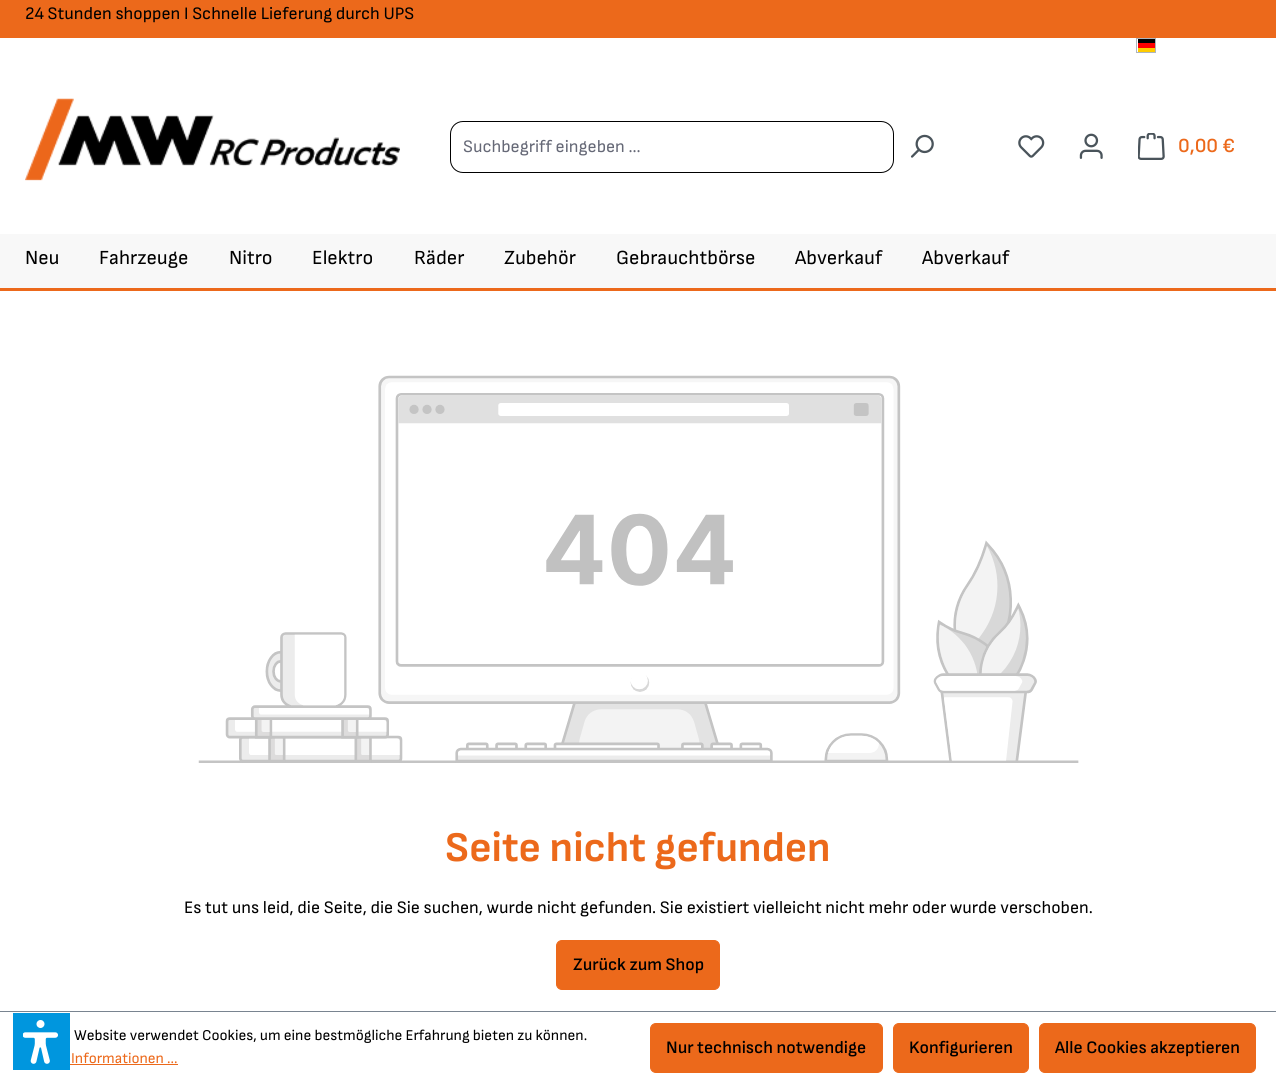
import math
import cairo


def use_color(cr, r, g, b):
  cr.set_source_rgb(r / 255, g / 255, b / 255)

def text(cr, x, y, s, family, size, color, bold=False, italic=False):
  cr.select_font_face(family, cairo.FONT_SLANT_ITALIC if italic else cairo.FONT_SLANT_NORMAL, cairo.FONT_WEIGHT_BOLD if bold else cairo.FONT_WEIGHT_NORMAL)
  cr.set_font_size(size)
  use_color(cr, *color)
  cr.move_to(x, y)
  cr.show_text(s)

def box(cr, x, y, w, h, *color):
  use_color(cr, *color)
  cr.rectangle(x, y, w, h)
  cr.fill()

def round_rect(cr, x, y, w, h, r):
  cr.new_sub_path()
  for i, (u, v) in enumerate([(x + w - r, y + h - r), (x + r, y + h - r), (x + r, y + r), (x + w - r, y + r)]):
    cr.arc(u, v, r, i * math.pi / 2, (i + 1) * math.pi / 2)
  cr.close_path()

def picture(cr, path, x, y, w, h):
  cr.save()
  cr.set_source_surface(cairo.ImageSurface.create_from_png(path), x, y)
  cr.rectangle(x, y, w, h)
  cr.fill()
  cr.restore()

def draw(cr):
  use_color(cr, 255, 255, 255)
  cr.paint()
  box(cr, 0, 0, 1276, 38, 236, 105, 27)
  box(cr, 1138, 39, 17, 4, 0, 0, 0)
  box(cr, 1138, 43, 17, 5, 255, 0, 0)
  box(cr, 1138, 48, 17, 4, 255, 204, 0)
  cr.rectangle(1136.5, 38.5, 19, 14)
  use_color(cr, 173, 181, 189)
  cr.set_line_width(1)
  cr.stroke()
  picture(cr, "img_01.png", 25, 98, 375, 83)
  round_rect(cr, 450.5, 121.5, 443, 51, 12.5)
  use_color(cr, 0, 0, 0)
  cr.stroke()
  picture(cr, "img_02.png", 910, 134, 24, 24)
  picture(cr, "img_03.png", 1018, 135, 27, 23)
  picture(cr, "img_04.png", 1079, 133, 24, 26)
  picture(cr, "img_05.png", 1138, 133, 27, 27)
  box(cr, 0, 234, 1276, 54, 248, 248, 248)
  box(cr, 0, 288, 1276, 3, 236, 105, 27)
  picture(cr, "img_06.png", 198, 375, 881, 388)
  round_rect(cr, 556.5, 940.5, 163, 49, 5.5)
  cr.fill_preserve()
  cr.stroke()
  box(cr, 0, 1011, 1276, 1, 121, 132, 144)
  box(cr, 70, 1064, 108, 1, 236, 105, 27)
  round_rect(cr, 650.5, 1023.5, 232, 49, 5.5)
  cr.fill_preserve()
  cr.stroke()
  round_rect(cr, 893.5, 1023.5, 135, 49, 5.5)
  cr.fill_preserve()
  cr.stroke()
  round_rect(cr, 1039.5, 1023.5, 216, 49, 5.5)
  cr.fill_preserve()
  cr.stroke()
  box(cr, 13, 1013, 57, 57, 0, 150, 222)
  picture(cr, "img_07.png", 23, 1020, 35, 44)
  text(cr, 25, 19, "24 Stunden shoppen I Schnelle Lieferung durch UPS", "Sofia Sans", 17.5, (0, 0, 0))
  text(cr, 463, 152, "Suchbegriff eingeben ...", "Sofia Sans", 17.5, (102, 105, 119))
  text(cr, 1178, 152, "0,00 €", "Sofia Sans SemiBold", 20, (236, 105, 27))
  text(cr, 25, 264, "Neu", "Sofia Sans", 20, (0, 0, 0))
  text(cr, 99, 264, "Fahrzeuge", "Sofia Sans", 20, (0, 0, 0))
  text(cr, 229, 264, "Nitro", "Sofia Sans", 20, (0, 0, 0))
  text(cr, 312, 264, "Elektro", "Sofia Sans", 20, (0, 0, 0))
  text(cr, 414, 264, "Räder", "Sofia Sans", 20, (0, 0, 0))
  text(cr, 504, 264, "Zubehör", "Sofia Sans", 20, (0, 0, 0))
  text(cr, 616, 264, "Gebrauchtbörse", "Sofia Sans", 20, (0, 0, 0))
  text(cr, 795, 264, "Abverkauf", "Sofia Sans", 20, (0, 0, 0))
  text(cr, 922, 264, "Abverkauf", "Sofia Sans", 20, (0, 0, 0))
  text(cr, 445, 861, "Seite nicht gefunden", "Sofia Sans", 42.25, (236, 105, 27), bold=True)
  text(cr, 184, 913, "Es tut uns leid, die Seite, die Sie suchen, wurde nicht gefunden. Sie existiert vielleicht nicht mehr oder wurde verschoben.", "Sofia Sans", 17.5, (0, 0, 0))
  text(cr, 573, 970, "Zurück zum Shop", "Sofia Sans SemiBold", 17.5, (0, 0, 0))
  text(cr, 74, 1040, "Website verwendet Cookies, um eine bestmögliche Erfahrung bieten zu können.", "Sofia Sans", 15, (0, 0, 0))
  text(cr, 71, 1063, "Informationen ...", "Sofia Sans", 15, (236, 105, 27))
  text(cr, 666, 1053, "Nur technisch notwendige", "Sofia Sans SemiBold", 17.5, (0, 0, 0))
  text(cr, 909, 1053, "Konfigurieren", "Sofia Sans SemiBold", 17.5, (0, 0, 0))
  text(cr, 1055, 1053, "Alle Cookies akzeptieren", "Sofia Sans SemiBold", 17.5, (0, 0, 0))


surface = cairo.ImageSurface(cairo.FORMAT_RGB24, 1276, 1082)
cr = cairo.Context(surface)
options = cairo.FontOptions()
options.set_hint_metrics(cairo.HINT_METRICS_OFF)
options.set_hint_style(cairo.HINT_STYLE_NONE)
cr.set_font_options(options)
cr.set_miter_limit(4)
draw(cr)
surface.write_to_png("out.png")
